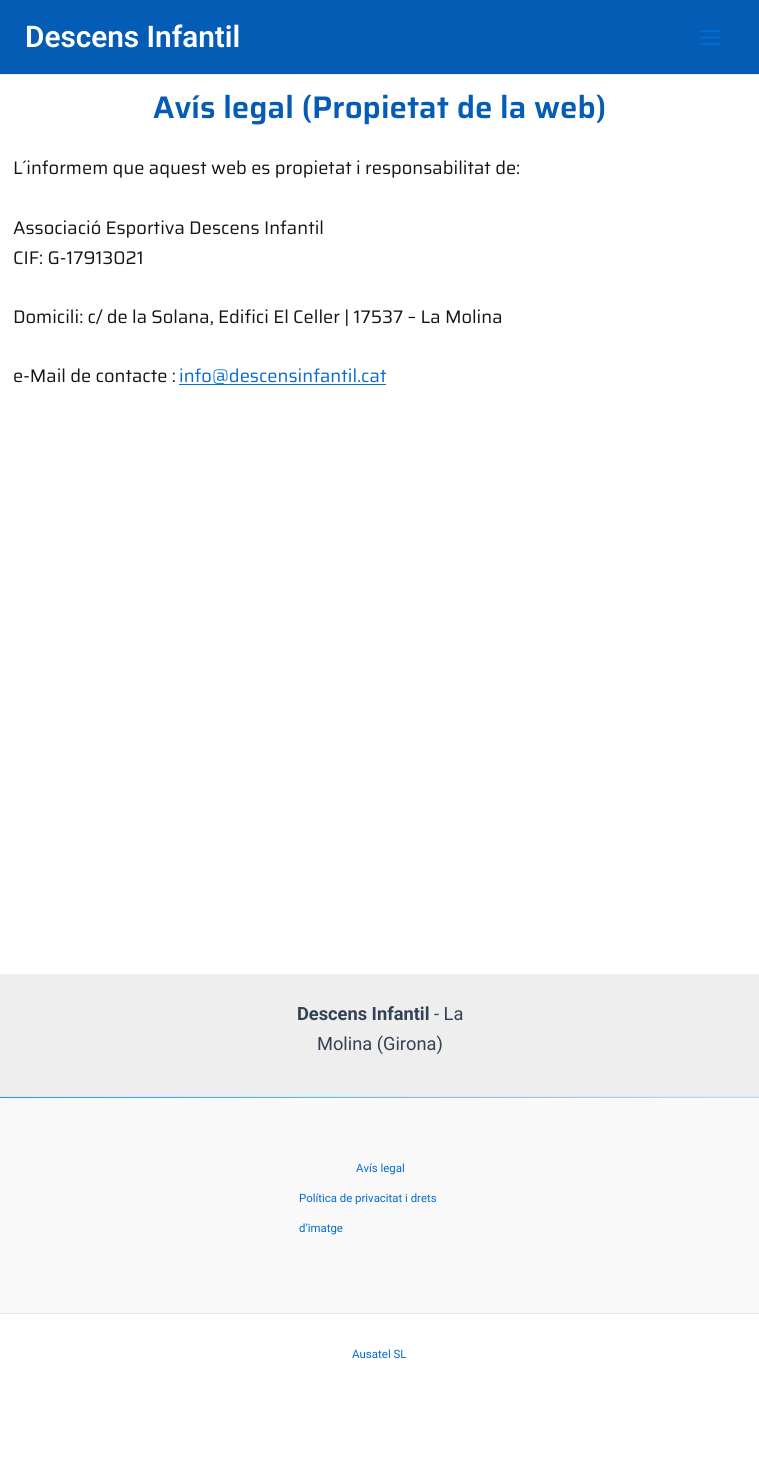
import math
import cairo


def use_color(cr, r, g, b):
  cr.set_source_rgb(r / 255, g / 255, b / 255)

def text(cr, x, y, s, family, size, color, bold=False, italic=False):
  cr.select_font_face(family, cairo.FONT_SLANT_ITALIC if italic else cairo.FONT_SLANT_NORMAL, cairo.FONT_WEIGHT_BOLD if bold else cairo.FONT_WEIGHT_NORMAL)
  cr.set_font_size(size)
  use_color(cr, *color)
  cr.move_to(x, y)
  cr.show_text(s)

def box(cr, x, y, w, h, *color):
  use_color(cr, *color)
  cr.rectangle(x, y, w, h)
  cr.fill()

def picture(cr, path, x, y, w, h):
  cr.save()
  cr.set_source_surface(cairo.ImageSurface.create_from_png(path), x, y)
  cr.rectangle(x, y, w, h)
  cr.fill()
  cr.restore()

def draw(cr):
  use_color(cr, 255, 255, 255)
  cr.paint()
  box(cr, 0, 0, 759, 74, 4, 92, 180)
  box(cr, 0, 74, 759, 1, 234, 234, 234)
  picture(cr, "img_01.png", 699, 30, 22, 15)
  box(cr, 179, 384, 207, 1, 4, 107, 210)
  gradient = cairo.LinearGradient(67, 906, 693, 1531)
  gradient.add_color_stop_rgba(0, 0.024, 0.576, 0.89, 1)
  gradient.add_color_stop_rgba(1, 1, 1, 1, 1)
  cr.set_source(gradient)
  cr.rectangle(0, 1097, 759, 1)
  cr.fill()
  box(cr, 0, 974, 759, 122, 238, 238, 238)
  box(cr, 0, 1098, 759, 215, 249, 249, 249)
  box(cr, 0, 1096, 759, 1, 230, 230, 230)
  box(cr, 0, 1313, 759, 1, 226, 232, 240)
  text(cr, 25, 47, "Descens Infantil", "Roboto SemiBold", 29.75, (255, 255, 255))
  text(cr, 153, 118, "Avís legal (Propietat de la web)", "Saira SemiBold", 31.25, (4, 92, 180))
  text(cr, 13, 174, "L´informem que aquest web es propietat i responsabilitat de:", "Saira", 18.25, (21, 21, 21))
  text(cr, 13, 234, "Associació Esportiva Descens Infantil", "Saira", 18.25, (21, 21, 21))
  text(cr, 13, 264, "CIF: G-17913021", "Saira", 18.25, (21, 21, 21))
  text(cr, 13, 323, "Domicili: c/ de la Solana, Edifici El Celler | 17537 – La Molina", "Saira", 18.25, (21, 21, 21))
  text(cr, 13, 382, "e-Mail de contacte :", "Saira", 18.25, (21, 21, 21))
  text(cr, 179, 382, "info@descensinfantil.cat", "Saira", 18.25, (4, 107, 210))
  text(cr, 297, 1020, "Descens Infantil", "Roboto", 18.25, (51, 65, 85), bold=True)
  text(cr, 434, 1020, "- La", "Roboto", 18.25, (51, 65, 85))
  text(cr, 317, 1050, "Molina (Girona)", "Roboto", 18.25, (51, 65, 85))
  text(cr, 356, 1172, "Avís legal", "Roboto", 11.4, (4, 107, 210))
  text(cr, 299, 1202, "Política de privacitat i drets", "Roboto", 11.4, (4, 107, 210))
  text(cr, 299, 1232, "d’imatge", "Roboto", 11.4, (4, 107, 210))
  text(cr, 352, 1358, "Ausatel SL", "Roboto", 11.5, (4, 107, 210))


surface = cairo.ImageSurface(cairo.FORMAT_RGB24, 759, 1463)
cr = cairo.Context(surface)
options = cairo.FontOptions()
options.set_hint_metrics(cairo.HINT_METRICS_OFF)
options.set_hint_style(cairo.HINT_STYLE_NONE)
cr.set_font_options(options)
cr.set_miter_limit(4)
draw(cr)
surface.write_to_png("out.png")
